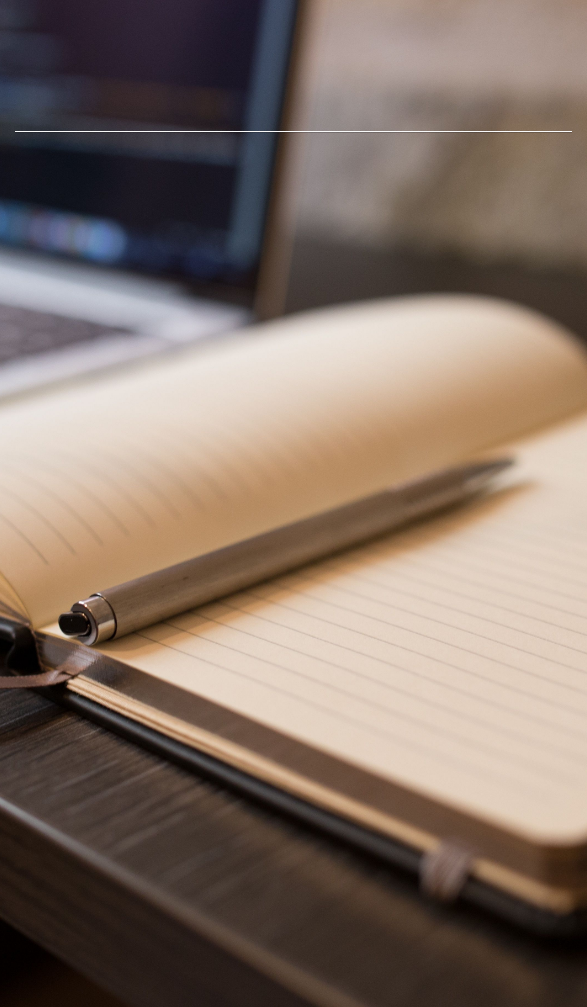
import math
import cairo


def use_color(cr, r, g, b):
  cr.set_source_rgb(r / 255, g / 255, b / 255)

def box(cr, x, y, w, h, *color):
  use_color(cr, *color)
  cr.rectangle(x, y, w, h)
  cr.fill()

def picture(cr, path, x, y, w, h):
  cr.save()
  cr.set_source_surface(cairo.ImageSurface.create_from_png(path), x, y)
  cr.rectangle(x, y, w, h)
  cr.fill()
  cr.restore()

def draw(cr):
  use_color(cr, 255, 255, 255)
  cr.paint()
  picture(cr, "img_01.png", 0, 0, 587, 1007)
  box(cr, 15, 131, 557, 1, 248, 248, 248)
  cr.set_source_rgba(0, 0, 0, 0.2)
  cr.rectangle(15, 132, 557, 1)
  cr.fill()


surface = cairo.ImageSurface(cairo.FORMAT_RGB24, 587, 1007)
cr = cairo.Context(surface)
options = cairo.FontOptions()
options.set_hint_metrics(cairo.HINT_METRICS_OFF)
options.set_hint_style(cairo.HINT_STYLE_NONE)
cr.set_font_options(options)
cr.set_miter_limit(4)
draw(cr)
surface.write_to_png("out.png")
